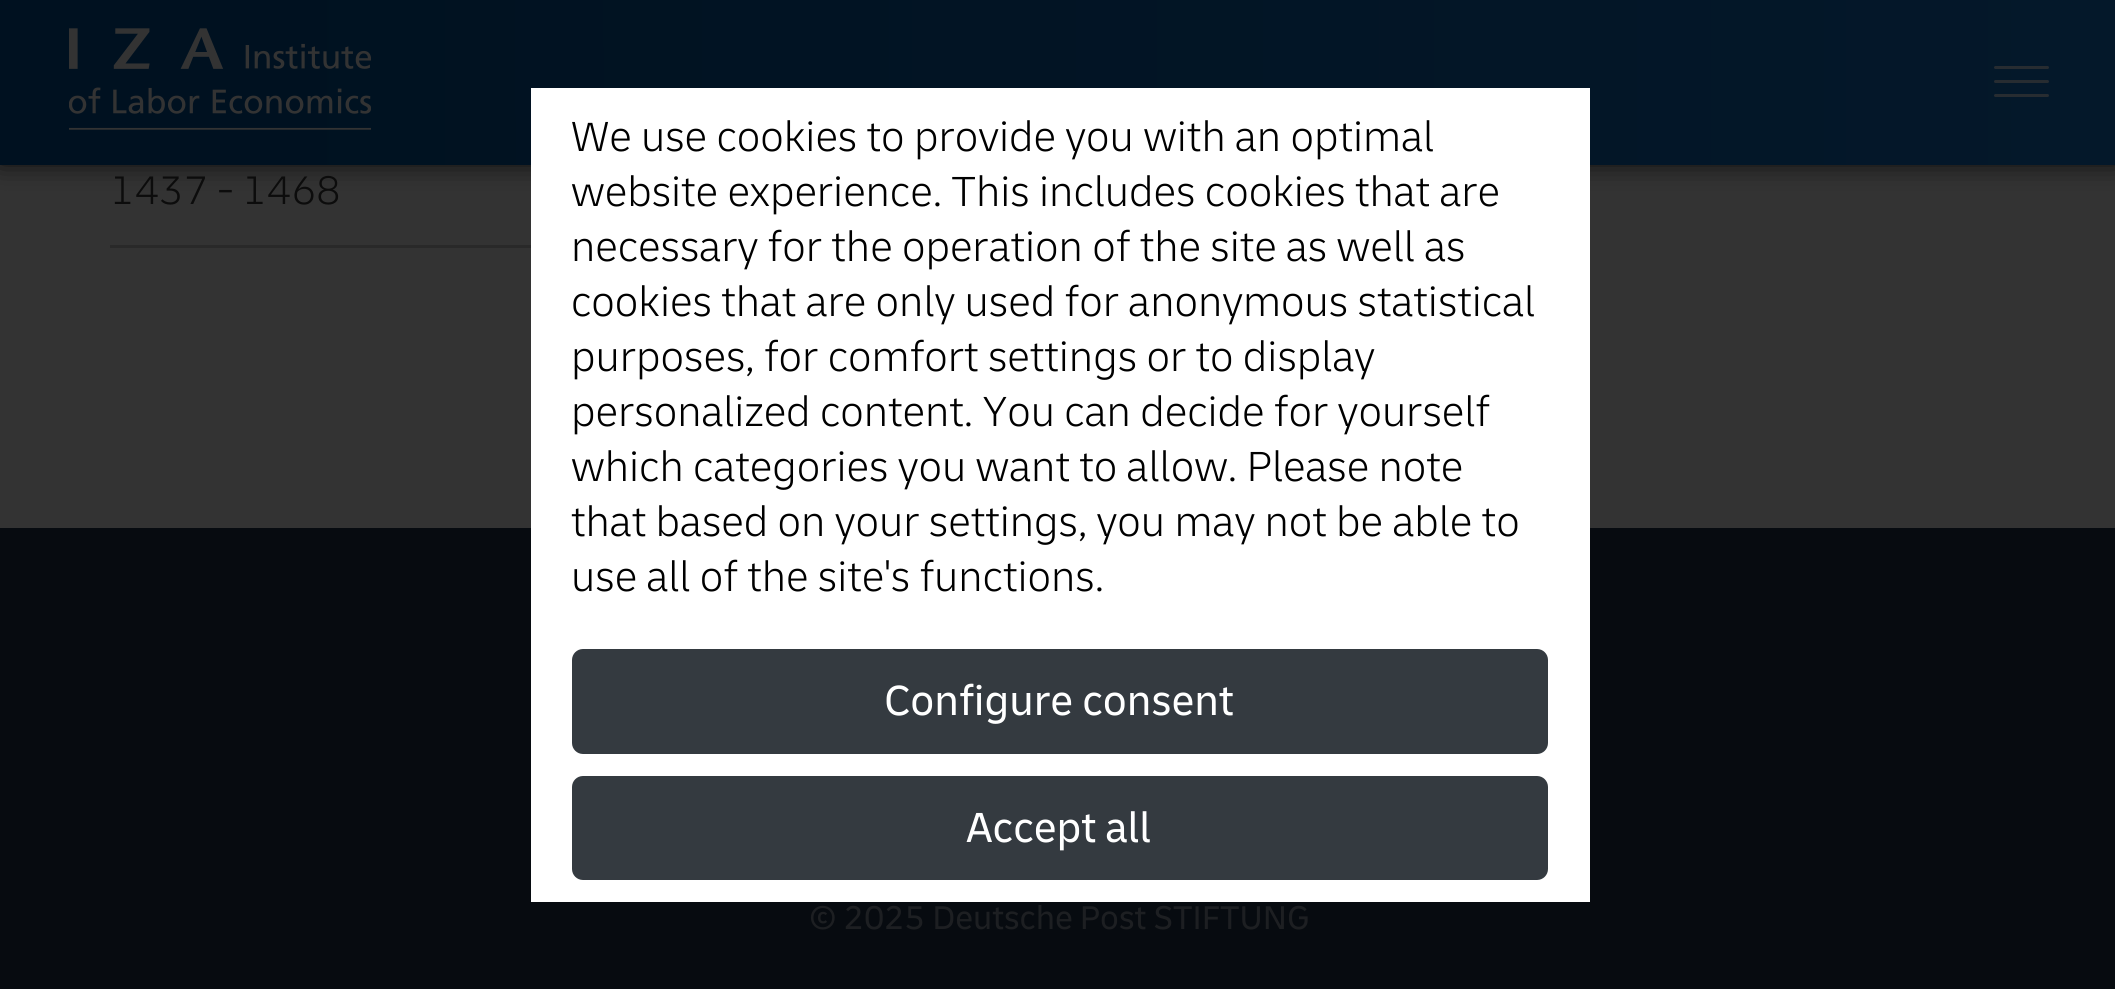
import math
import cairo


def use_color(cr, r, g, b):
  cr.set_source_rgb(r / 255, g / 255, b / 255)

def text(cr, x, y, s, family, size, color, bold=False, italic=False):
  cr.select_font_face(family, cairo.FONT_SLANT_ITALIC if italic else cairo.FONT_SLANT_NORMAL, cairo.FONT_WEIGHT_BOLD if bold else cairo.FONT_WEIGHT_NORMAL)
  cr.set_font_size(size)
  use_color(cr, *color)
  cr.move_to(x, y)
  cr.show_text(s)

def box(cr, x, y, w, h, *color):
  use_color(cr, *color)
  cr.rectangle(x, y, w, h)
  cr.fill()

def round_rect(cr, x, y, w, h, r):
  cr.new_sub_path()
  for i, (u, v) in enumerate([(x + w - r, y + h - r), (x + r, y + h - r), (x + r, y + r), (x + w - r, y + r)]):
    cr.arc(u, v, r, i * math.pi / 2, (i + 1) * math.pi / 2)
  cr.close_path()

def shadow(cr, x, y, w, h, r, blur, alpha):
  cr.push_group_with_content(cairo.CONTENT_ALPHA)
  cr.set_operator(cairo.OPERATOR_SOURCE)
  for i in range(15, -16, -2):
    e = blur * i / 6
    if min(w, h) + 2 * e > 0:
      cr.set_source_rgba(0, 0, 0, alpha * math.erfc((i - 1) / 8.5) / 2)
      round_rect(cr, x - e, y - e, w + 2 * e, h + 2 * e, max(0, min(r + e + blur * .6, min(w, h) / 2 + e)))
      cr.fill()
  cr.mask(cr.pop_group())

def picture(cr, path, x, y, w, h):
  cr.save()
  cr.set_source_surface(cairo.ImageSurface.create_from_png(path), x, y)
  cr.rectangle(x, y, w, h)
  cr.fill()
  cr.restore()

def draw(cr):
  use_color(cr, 51, 51, 51)
  cr.paint()
  use_color(cr, 0, 0, 0)
  shadow(cr, 0, -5, 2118, 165, 0, 14, 1)
  gradient = cairo.LinearGradient(0, 83, 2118, 82)
  gradient.add_color_stop_rgba(0.1, 0, 0.067, 0.125, 1)
  gradient.add_color_stop_rgba(1, 0.016, 0.094, 0.165, 1)
  cr.set_source(gradient)
  cr.rectangle(0, 0, 2115, 165)
  cr.fill()
  picture(cr, "img_01.png", 69, 28, 302, 102)
  use_color(cr, 39, 44, 49)
  round_rect(cr, 1994, 80, 55, 3, 1.5)
  cr.fill()
  round_rect(cr, 1994, 66, 55, 3, 1.5)
  cr.fill()
  round_rect(cr, 1994, 94, 55, 3, 1.5)
  cr.fill()
  box(cr, 110, 245, 421, 3, 41, 41, 41)
  box(cr, 0, 528, 2115, 461, 7, 11, 16)
  box(cr, 531, 88, 1059, 814, 255, 255, 255)
  use_color(cr, 52, 58, 64)
  round_rect(cr, 573.5, 650.5, 973, 102, 9.5)
  cr.fill_preserve()
  cr.set_line_width(3)
  cr.stroke()
  round_rect(cr, 573.5, 777.5, 973, 101, 9.5)
  cr.fill_preserve()
  cr.stroke()
  text(cr, 110, 204, "1437 - 1468", "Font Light", 41.75, (12, 12, 12))
  text(cr, 571, 151, "We use cookies to provide you with an optimal", "Font Light", 44, (0, 0, 0))
  text(cr, 571, 206, "website experience. This includes cookies that are", "Font Light", 44, (0, 0, 0))
  text(cr, 571, 261, "necessary for the operation of the site as well as", "Font Light", 44, (0, 0, 0))
  text(cr, 571, 316, "cookies that are only used for anonymous statistical", "Font Light", 44, (0, 0, 0))
  text(cr, 571, 371, "purposes, for comfort settings or to display", "Font Light", 44, (0, 0, 0))
  text(cr, 571, 426, "personalized content. You can decide for yourself", "Font Light", 44, (0, 0, 0))
  text(cr, 571, 481, "which categories you want to allow. Please note", "Font Light", 44, (0, 0, 0))
  text(cr, 571, 536, "that based on your settings, you may not be able to", "Font Light", 44, (0, 0, 0))
  text(cr, 571, 591, "use all of the site's functions.", "Font Light", 44, (0, 0, 0))
  text(cr, 884, 715, "Configure consent", "Font", 44, (255, 255, 255))
  text(cr, 966, 842, "Accept all", "Font", 44, (255, 255, 255))
  text(cr, 809, 929, "© 2025 Deutsche Post STIFTUNG", "Font", 34.4, (29, 31, 34))


surface = cairo.ImageSurface(cairo.FORMAT_RGB24, 2115, 989)
cr = cairo.Context(surface)
options = cairo.FontOptions()
options.set_hint_metrics(cairo.HINT_METRICS_OFF)
options.set_hint_style(cairo.HINT_STYLE_NONE)
cr.set_font_options(options)
cr.set_miter_limit(4)
draw(cr)
surface.write_to_png("out.png")
